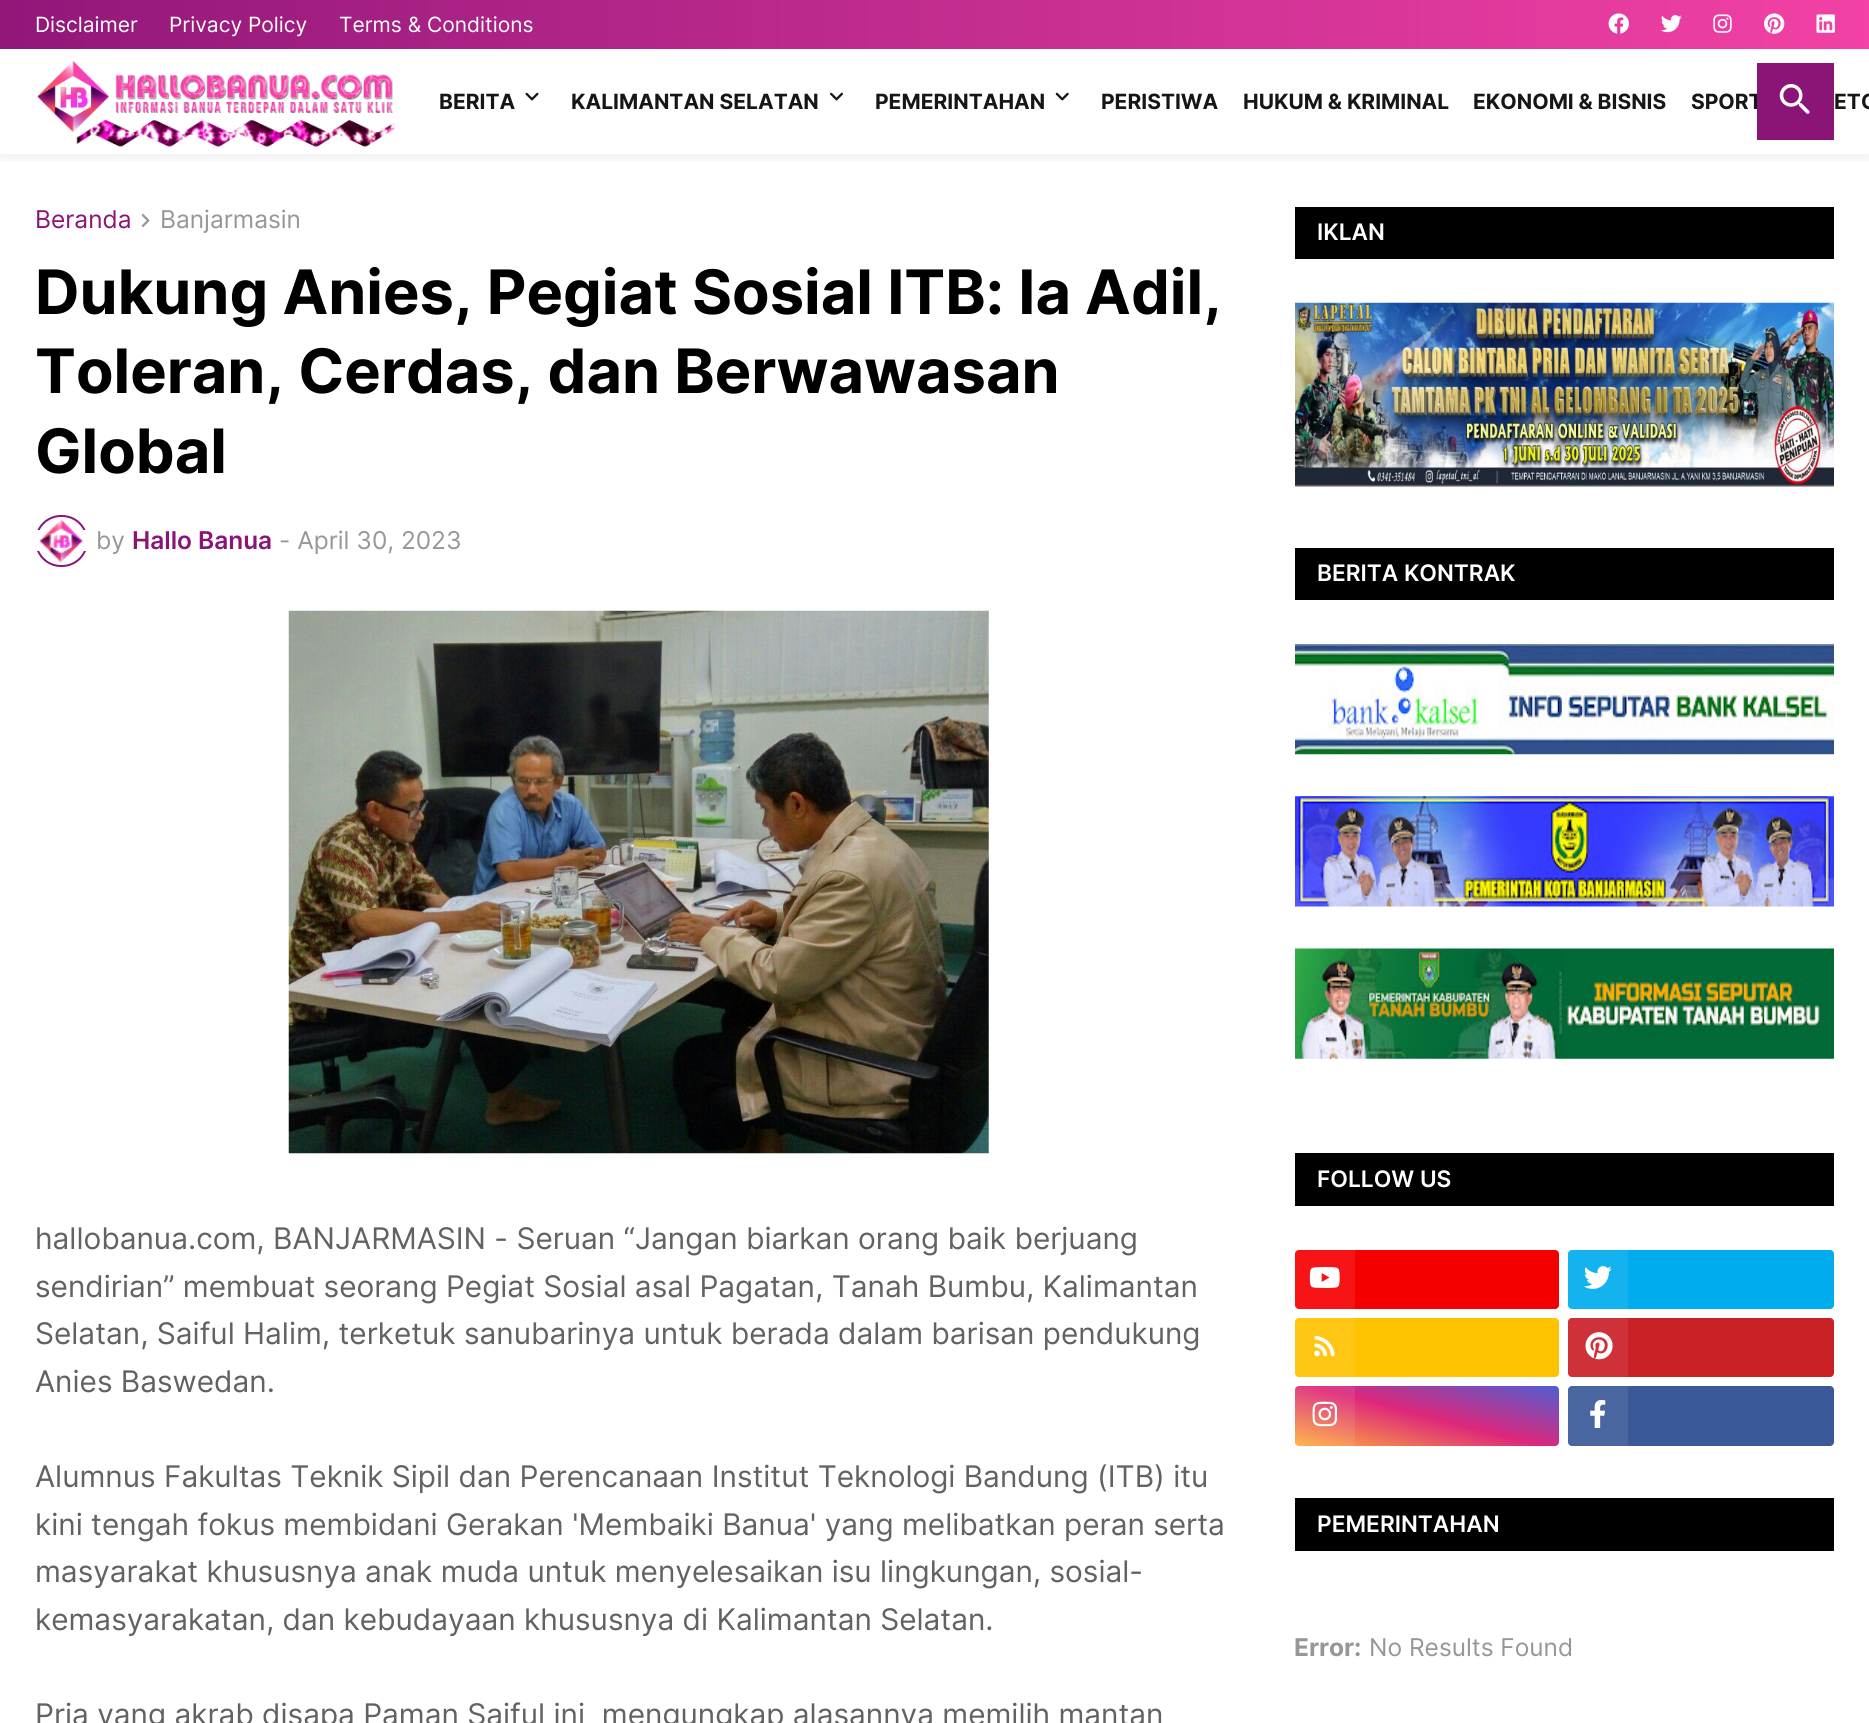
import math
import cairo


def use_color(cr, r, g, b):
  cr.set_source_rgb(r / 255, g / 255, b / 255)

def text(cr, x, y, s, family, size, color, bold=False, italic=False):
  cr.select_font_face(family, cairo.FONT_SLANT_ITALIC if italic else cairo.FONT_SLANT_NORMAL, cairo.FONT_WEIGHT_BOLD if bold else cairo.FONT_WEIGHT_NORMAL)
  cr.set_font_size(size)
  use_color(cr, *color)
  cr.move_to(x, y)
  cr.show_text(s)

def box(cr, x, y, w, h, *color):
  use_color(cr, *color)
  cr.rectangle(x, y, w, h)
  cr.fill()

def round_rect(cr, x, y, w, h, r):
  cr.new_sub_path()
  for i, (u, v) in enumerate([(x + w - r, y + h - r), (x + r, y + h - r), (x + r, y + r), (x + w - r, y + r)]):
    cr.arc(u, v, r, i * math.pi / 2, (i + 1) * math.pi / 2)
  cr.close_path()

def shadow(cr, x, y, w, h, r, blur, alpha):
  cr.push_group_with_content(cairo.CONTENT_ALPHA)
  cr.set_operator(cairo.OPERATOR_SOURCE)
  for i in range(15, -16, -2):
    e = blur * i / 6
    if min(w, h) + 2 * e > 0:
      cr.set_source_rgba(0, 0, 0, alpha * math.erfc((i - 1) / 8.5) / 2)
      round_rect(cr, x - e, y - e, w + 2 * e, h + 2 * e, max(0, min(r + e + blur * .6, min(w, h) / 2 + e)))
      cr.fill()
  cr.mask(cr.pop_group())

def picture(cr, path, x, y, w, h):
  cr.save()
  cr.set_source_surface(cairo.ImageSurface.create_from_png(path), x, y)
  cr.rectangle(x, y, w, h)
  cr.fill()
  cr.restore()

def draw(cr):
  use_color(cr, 255, 255, 255)
  cr.paint()
  cr.save()
  cr.rectangle(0, 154, 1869, 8)
  cr.clip()
  use_color(cr, 0, 0, 0)
  shadow(cr, 0, 49, 1869, 105, 0, 9, 0.1)
  cr.restore()
  gradient = cairo.LinearGradient(0, 25, 1869, 24)
  gradient.add_color_stop_rgba(0, 0.569, 0.09, 0.475, 1)
  gradient.add_color_stop_rgba(1, 0.953, 0.255, 0.647, 1)
  cr.set_source(gradient)
  cr.rectangle(0, 0, 1869, 49)
  cr.fill()
  picture(cr, "img_01.png", 1608, 13, 21, 21)
  picture(cr, "img_02.png", 1661, 15, 21, 18)
  picture(cr, "img_03.png", 1713, 14, 19, 19)
  picture(cr, "img_04.png", 1764, 13, 21, 21)
  picture(cr, "img_05.png", 1816, 14, 19, 19)
  picture(cr, "img_07.png", 37, 60, 358, 87)
  picture(cr, "img_08.png", 525, 92, 14, 9)
  picture(cr, "img_09.png", 830, 92, 13, 9)
  picture(cr, "img_10.png", 1055, 92, 14, 9)
  picture(cr, "img_11.png", 141, 214, 9, 13)
  round_rect(cr, 36, 516, 51, 50, 25)
  use_color(cr, 139, 21, 119)
  cr.stroke()
  box(cr, 35, 530, 53, 21, 255, 255, 255)
  picture(cr, "img_12.png", 39, 519, 44, 44)
  picture(cr, "img_13.png", 288, 610, 701, 544)
  box(cr, 1295, 207, 539, 52, 0, 0, 0)
  picture(cr, "img_14.png", 1295, 302, 539, 185)
  box(cr, 1295, 548, 539, 52, 0, 0, 0)
  picture(cr, "img_15.png", 1295, 644, 539, 111)
  picture(cr, "img_16.png", 1295, 796, 539, 111)
  picture(cr, "img_17.png", 1295, 948, 539, 111)
  box(cr, 1295, 1153, 539, 53, 0, 0, 0)
  use_color(cr, 245, 0, 0)
  round_rect(cr, 1295, 1250, 264, 59, 4)
  cr.fill()
  cr.set_source_rgba(1, 1, 1, 0.08)
  cr.new_path()
  cr.move_to(1299, 1250)
  cr.line_to(1355, 1250)
  cr.line_to(1355, 1309)
  cr.line_to(1299, 1309)
  cr.curve_to(1297, 1309, 1295, 1307, 1295, 1305)
  cr.line_to(1295, 1254)
  cr.curve_to(1295, 1252, 1297, 1250, 1299, 1250)
  cr.close_path()
  cr.fill()
  picture(cr, "img_18.png", 1309, 1267, 31, 21)
  use_color(cr, 0, 172, 238)
  round_rect(cr, 1568, 1250, 266, 59, 4)
  cr.fill()
  cr.set_source_rgba(1, 1, 1, 0.08)
  cr.new_path()
  cr.move_to(1572, 1250)
  cr.line_to(1628, 1250)
  cr.line_to(1628, 1309)
  cr.line_to(1572, 1309)
  cr.curve_to(1570, 1309, 1568, 1307, 1568, 1305)
  cr.line_to(1568, 1254)
  cr.curve_to(1568, 1252, 1570, 1250, 1572, 1250)
  cr.close_path()
  cr.fill()
  picture(cr, "img_19.png", 1584, 1266, 28, 23)
  use_color(cr, 255, 194, 0)
  round_rect(cr, 1295, 1318, 264, 59, 4)
  cr.fill()
  cr.set_source_rgba(1, 1, 1, 0.08)
  cr.new_path()
  cr.move_to(1299, 1318)
  cr.line_to(1355, 1318)
  cr.line_to(1355, 1377)
  cr.line_to(1299, 1377)
  cr.curve_to(1297, 1377, 1295, 1375, 1295, 1373)
  cr.line_to(1295, 1322)
  cr.curve_to(1295, 1320, 1297, 1318, 1299, 1318)
  cr.close_path()
  cr.fill()
  picture(cr, "img_20.png", 1314, 1335, 21, 22)
  use_color(cr, 202, 33, 39)
  round_rect(cr, 1568, 1318, 266, 59, 4)
  cr.fill()
  cr.set_source_rgba(1, 1, 1, 0.08)
  cr.new_path()
  cr.move_to(1572, 1318)
  cr.line_to(1628, 1318)
  cr.line_to(1628, 1377)
  cr.line_to(1572, 1377)
  cr.curve_to(1570, 1377, 1568, 1375, 1568, 1373)
  cr.line_to(1568, 1322)
  cr.curve_to(1568, 1320, 1570, 1318, 1572, 1318)
  cr.close_path()
  cr.fill()
  picture(cr, "img_21.png", 1585, 1332, 28, 28)
  gradient = cairo.LinearGradient(1411, 1477, 1443, 1355)
  gradient.add_color_stop_rgba(0, 1, 0.694, 0.239, 1)
  gradient.add_color_stop_rgba(0.5, 0.867, 0.153, 0.482, 1)
  gradient.add_color_stop_rgba(1, 0.302, 0.369, 0.831, 1)
  cr.set_source(gradient)
  round_rect(cr, 1295, 1386, 264, 60, 4)
  cr.fill()
  cr.set_source_rgba(1, 1, 1, 0.08)
  cr.new_path()
  cr.move_to(1299, 1386)
  cr.line_to(1355, 1386)
  cr.line_to(1355, 1446)
  cr.line_to(1299, 1446)
  cr.curve_to(1297, 1446, 1295, 1444, 1295, 1442)
  cr.line_to(1295, 1390)
  cr.curve_to(1295, 1388, 1297, 1386, 1299, 1386)
  cr.close_path()
  cr.fill()
  picture(cr, "img_22.png", 1312, 1401, 26, 26)
  use_color(cr, 59, 89, 153)
  round_rect(cr, 1568, 1386, 266, 60, 4)
  cr.fill()
  cr.set_source_rgba(1, 1, 1, 0.08)
  cr.new_path()
  cr.move_to(1572, 1386)
  cr.line_to(1628, 1386)
  cr.line_to(1628, 1446)
  cr.line_to(1572, 1446)
  cr.curve_to(1570, 1446, 1568, 1444, 1568, 1442)
  cr.line_to(1568, 1390)
  cr.curve_to(1568, 1388, 1570, 1386, 1572, 1386)
  cr.close_path()
  cr.fill()
  picture(cr, "img_23.png", 1590, 1400, 16, 28)
  box(cr, 1295, 1498, 539, 53, 0, 0, 0)
  text(cr, 35, 32, "Disclaimer", "Inter", 21, (255, 255, 255))
  text(cr, 169, 32, "Privacy Policy", "Inter", 21, (255, 255, 255))
  text(cr, 339, 32, "Terms & Conditions", "Inter", 21, (255, 255, 255))
  text(cr, 439, 109, "BERITA", "Inter", 21, (22, 22, 24), bold=True)
  text(cr, 571, 109, "KALIMANTAN SELATAN", "Inter", 21, (22, 22, 24), bold=True)
  text(cr, 875, 109, "PEMERINTAHAN", "Inter", 21, (22, 22, 24), bold=True)
  text(cr, 1101, 109, "PERISTIWA", "Inter", 21, (22, 22, 24), bold=True)
  text(cr, 1243, 109, "HUKUM & KRIMINAL", "Inter", 21, (22, 22, 24), bold=True)
  text(cr, 1473, 109, "EKONOMI & BISNIS", "Inter", 21, (22, 22, 24), bold=True)
  text(cr, 1691, 109, "SPORT", "Inter", 21, (22, 22, 24), bold=True)
  box(cr, 1757, 63, 77, 77, 139, 21, 119)
  picture(cr, "img_06.png", 1779, 84, 31, 30)
  text(cr, 1834, 109, "ETO", "Inter", 21, (22, 22, 24), bold=True)
  text(cr, 35, 228, "Beranda", "Inter", 24.5, (139, 21, 119))
  text(cr, 160, 228, "Banjarmasin", "Inter", 24.5, (151, 151, 151))
  text(cr, 35, 314, "Dukung Anies, Pegiat Sosial ITB: Ia Adil,", "Inter", 61.25, (0, 0, 0), bold=True)
  text(cr, 35, 393, "Toleran, Cerdas, dan Berwawasan", "Inter", 61.25, (0, 0, 0), bold=True)
  text(cr, 35, 473, "Global", "Inter", 61.25, (0, 0, 0), bold=True)
  text(cr, 96, 549, "by", "Inter", 24.5, (151, 151, 151))
  text(cr, 132, 549, "Hallo Banua", "Inter SemiBold", 24.5, (139, 21, 119))
  text(cr, 279, 549, "- April 30, 2023", "Inter", 24.5, (151, 151, 151))
  text(cr, 35, 1249, "hallobanua.com, BANJARMASIN - Seruan “Jangan biarkan orang baik berjuang", "Inter", 29.75, (98, 98, 98))
  text(cr, 35, 1297, "sendirian” membuat seorang Pegiat Sosial asal Pagatan, Tanah Bumbu, Kalimantan", "Inter", 29.75, (98, 98, 98))
  text(cr, 35, 1344, "Selatan, Saiful Halim, terketuk sanubarinya untuk berada dalam barisan pendukung", "Inter", 29.75, (98, 98, 98))
  text(cr, 35, 1392, "Anies Baswedan.", "Inter", 29.75, (98, 98, 98))
  text(cr, 35, 1487, "Alumnus Fakultas Teknik Sipil dan Perencanaan Institut Teknologi Bandung (ITB) itu", "Inter", 29.75, (98, 98, 98))
  text(cr, 35, 1535, "kini tengah fokus membidani Gerakan 'Membaiki Banua' yang melibatkan peran serta", "Inter", 29.75, (98, 98, 98))
  text(cr, 35, 1582, "masyarakat khususnya anak muda untuk menyelesaikan isu lingkungan, sosial-", "Inter", 29.75, (98, 98, 98))
  text(cr, 35, 1630, "kemasyarakatan, dan kebudayaan khususnya di Kalimantan Selatan.", "Inter", 29.75, (98, 98, 98))
  text(cr, 35, 1725, "Pria yang akrab disapa Paman Saiful ini  mengungkap alasannya memilih mantan", "Inter", 29.75, (98, 98, 98))
  text(cr, 1317, 240, "IKLAN", "Inter SemiBold", 22.75, (255, 255, 255))
  text(cr, 1317, 581, "BERITA KONTRAK", "Inter SemiBold", 22.75, (255, 255, 255))
  text(cr, 1317, 1187, "FOLLOW US", "Inter SemiBold", 22.75, (255, 255, 255))
  text(cr, 1317, 1532, "PEMERINTAHAN", "Inter SemiBold", 22.75, (255, 255, 255))
  text(cr, 1294, 1656, "Error:", "Inter", 24.5, (151, 151, 151), bold=True)
  text(cr, 1369, 1656, "No Results Found", "Inter", 24.5, (151, 151, 151))


surface = cairo.ImageSurface(cairo.FORMAT_RGB24, 1869, 1723)
cr = cairo.Context(surface)
options = cairo.FontOptions()
options.set_hint_metrics(cairo.HINT_METRICS_OFF)
options.set_hint_style(cairo.HINT_STYLE_NONE)
cr.set_font_options(options)
cr.set_miter_limit(4)
draw(cr)
surface.write_to_png("out.png")
